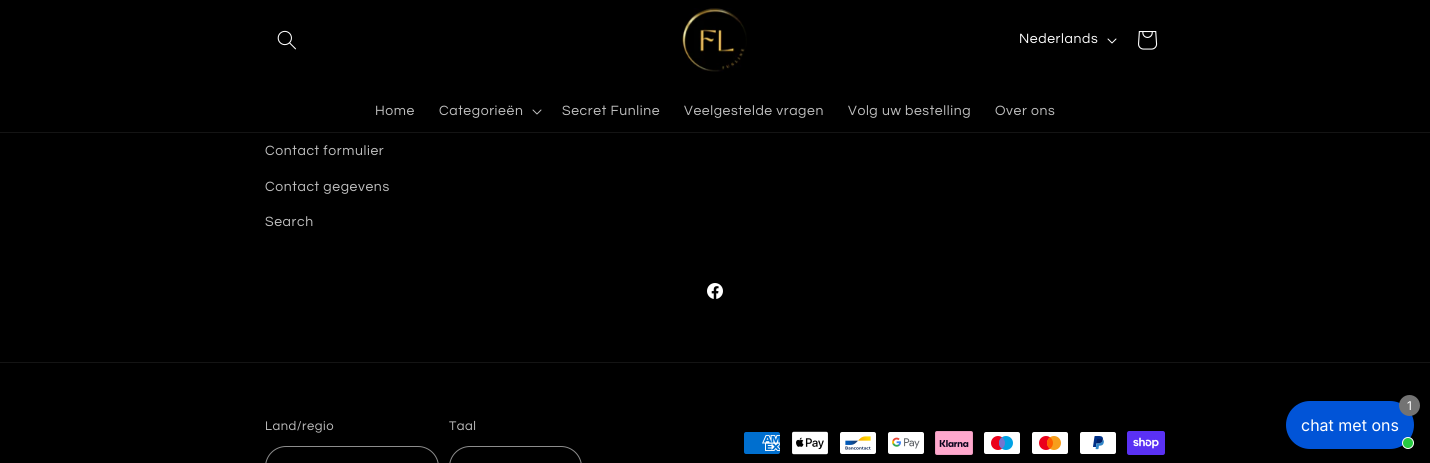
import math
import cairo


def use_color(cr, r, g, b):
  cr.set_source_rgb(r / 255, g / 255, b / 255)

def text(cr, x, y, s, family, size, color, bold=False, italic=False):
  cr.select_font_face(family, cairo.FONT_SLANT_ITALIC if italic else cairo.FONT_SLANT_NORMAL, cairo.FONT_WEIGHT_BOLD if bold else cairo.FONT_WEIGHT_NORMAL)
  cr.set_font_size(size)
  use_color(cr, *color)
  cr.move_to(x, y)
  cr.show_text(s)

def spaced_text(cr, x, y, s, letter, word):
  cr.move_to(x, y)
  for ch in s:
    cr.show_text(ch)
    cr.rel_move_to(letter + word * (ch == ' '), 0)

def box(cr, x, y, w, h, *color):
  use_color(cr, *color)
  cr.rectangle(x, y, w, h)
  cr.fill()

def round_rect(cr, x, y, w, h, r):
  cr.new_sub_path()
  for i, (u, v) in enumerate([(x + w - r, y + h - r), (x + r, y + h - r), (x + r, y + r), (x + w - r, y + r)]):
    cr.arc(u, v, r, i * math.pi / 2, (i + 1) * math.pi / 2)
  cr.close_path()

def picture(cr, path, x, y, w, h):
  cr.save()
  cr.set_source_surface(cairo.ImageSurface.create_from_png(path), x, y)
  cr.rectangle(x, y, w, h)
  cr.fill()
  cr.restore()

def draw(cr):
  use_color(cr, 0, 0, 0)
  cr.paint()
  box(cr, 0, 132, 1430, 1, 20, 20, 20)
  picture(cr, "img_01.png", 277, 30, 19, 20)
  picture(cr, "img_02.png", 681, 8, 66, 64)
  picture(cr, "img_03.png", 1107, 38, 10, 6)
  picture(cr, "img_04.png", 1138, 31, 20, 19)
  picture(cr, "img_05.png", 532, 109, 10, 6)
  picture(cr, "img_06.png", 707, 283, 16, 16)
  box(cr, 0, 362, 1430, 1, 20, 20, 20)
  round_rect(cr, 265.5, 446.5, 173, 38, 20.5)
  use_color(cr, 140, 140, 140)
  cr.set_line_width(1)
  cr.stroke()
  round_rect(cr, 449.5, 446.5, 132, 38, 20.5)
  cr.stroke()
  picture(cr, "img_07.png", 744, 432, 36, 22)
  picture(cr, "img_08.png", 792, 431, 36, 24)
  picture(cr, "img_09.png", 840, 432, 36, 22)
  picture(cr, "img_10.png", 888, 432, 36, 22)
  picture(cr, "img_11.png", 935, 431, 38, 24)
  picture(cr, "img_12.png", 984, 432, 36, 22)
  picture(cr, "img_13.png", 1032, 432, 36, 22)
  picture(cr, "img_14.png", 1080, 432, 36, 22)
  picture(cr, "img_15.png", 1127, 431, 38, 24)
  use_color(cr, 1, 84, 215)
  round_rect(cr, 1286, 401, 128, 48, 24)
  cr.fill()
  use_color(cr, 115, 115, 115)
  cr.arc(1409.5, 405.5, 10.5, 0, 2 * math.pi)
  cr.fill()
  use_color(cr, 39, 202, 64)
  cr.arc(1408, 443, 5.5, 0, 2 * math.pi)
  cr.fill_preserve()
  use_color(cr, 255, 255, 255)
  cr.stroke()
  cr.select_font_face("Questrial")
  cr.set_font_size(14)
  spaced_text(cr, 1019, 43, "Nederlands", 0.6, 0)
  use_color(cr, 191, 191, 191)
  spaced_text(cr, 375, 115, "Home", 0.6, 0)
  spaced_text(cr, 439, 115, "Categorieën", 0.6, 0)
  spaced_text(cr, 562, 115, "Secret Funline", 0.6, 0)
  spaced_text(cr, 684, 115, "Veelgestelde vragen", 0.6, 0)
  spaced_text(cr, 848, 115, "Volg uw bestelling", 0.6, 0)
  spaced_text(cr, 995, 115, "Over ons", 0.6, 0)
  spaced_text(cr, 265, 155, "Contact formulier", 0.6, 0)
  spaced_text(cr, 265, 191, "Contact gegevens", 0.6, 0)
  spaced_text(cr, 265, 226, "Search", 0.6, 0)
  cr.set_font_size(13)
  spaced_text(cr, 265, 430, "Land/regio", 0.5, 0)
  spaced_text(cr, 449, 430, "Taal", 0.5, 0)
  cr.select_font_face("Inter")
  cr.set_font_size(12)
  use_color(cr, 255, 255, 255)
  spaced_text(cr, 1407, 410, "1", 0.6, 0)
  text(cr, 1301, 431, "chat met ons", "Inter", 16, (255, 255, 255))


surface = cairo.ImageSurface(cairo.FORMAT_RGB24, 1430, 463)
cr = cairo.Context(surface)
options = cairo.FontOptions()
options.set_hint_metrics(cairo.HINT_METRICS_OFF)
options.set_hint_style(cairo.HINT_STYLE_NONE)
cr.set_font_options(options)
cr.set_miter_limit(4)
draw(cr)
surface.write_to_png("out.png")
